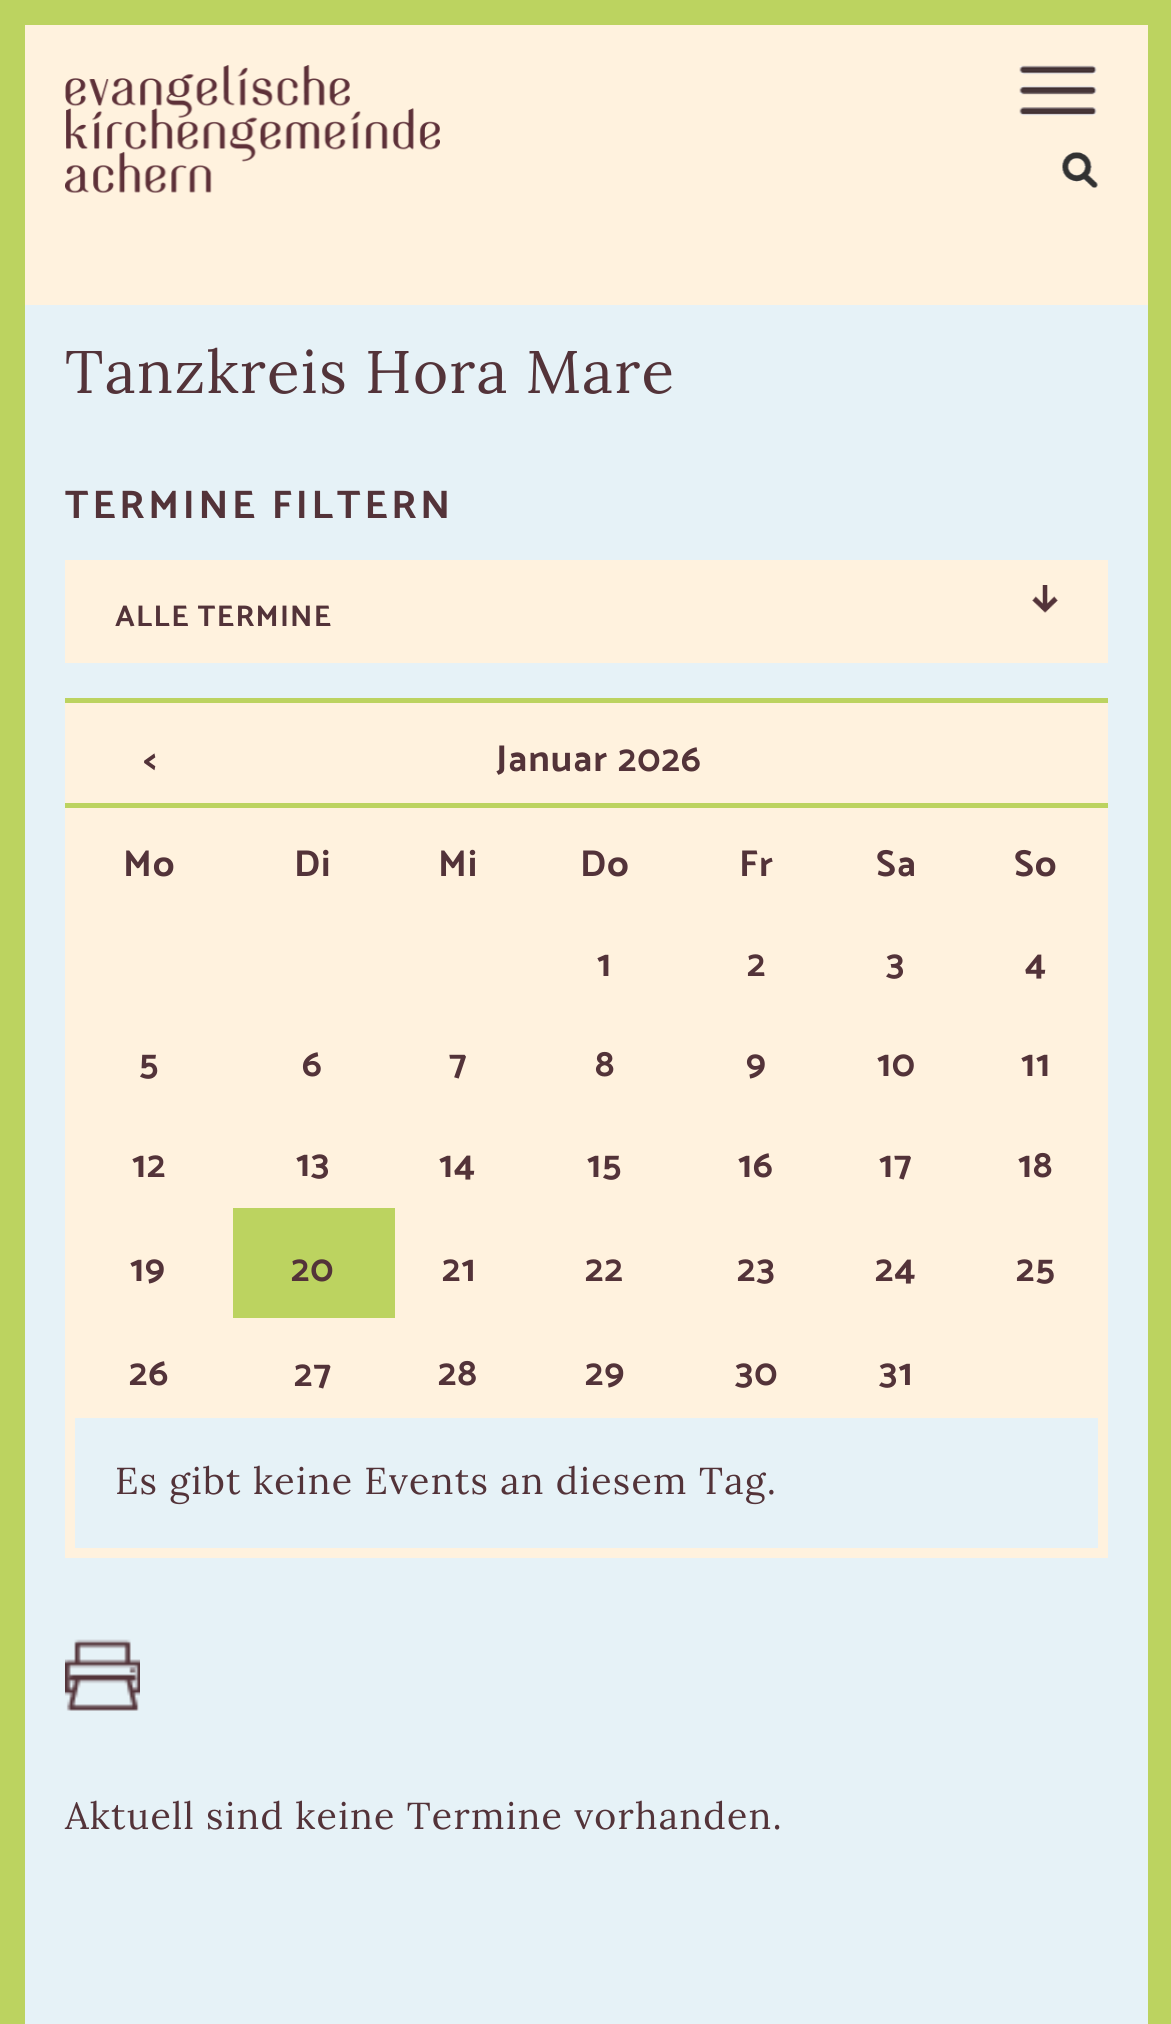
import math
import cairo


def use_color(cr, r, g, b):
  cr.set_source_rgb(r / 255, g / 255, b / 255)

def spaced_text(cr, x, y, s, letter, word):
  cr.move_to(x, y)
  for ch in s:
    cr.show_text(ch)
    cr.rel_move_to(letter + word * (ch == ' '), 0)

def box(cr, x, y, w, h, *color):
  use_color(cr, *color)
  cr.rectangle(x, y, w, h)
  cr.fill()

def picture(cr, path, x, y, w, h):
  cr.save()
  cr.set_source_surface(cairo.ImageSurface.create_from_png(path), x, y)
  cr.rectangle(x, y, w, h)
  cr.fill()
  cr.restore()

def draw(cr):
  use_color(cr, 255, 242, 222)
  cr.paint()
  box(cr, 1148, 0, 23, 2024, 188, 211, 96)
  box(cr, 0, 0, 25, 2024, 188, 211, 96)
  box(cr, 25, 0, 1123, 25, 188, 211, 96)
  picture(cr, "img_01.png", 65, 65, 375, 128)
  picture(cr, "img_02.png", 1019, 65, 78, 51)
  picture(cr, "img_03.png", 1062, 152, 36, 36)
  box(cr, 25, 305, 1123, 1719, 230, 242, 247)
  box(cr, 65, 560, 1043, 103, 255, 242, 222)
  picture(cr, "img_04.png", 1032, 585, 26, 28)
  box(cr, 65, 703, 1043, 715, 255, 242, 222)
  box(cr, 65, 698, 1043, 5, 188, 211, 96)
  box(cr, 65, 803, 1043, 5, 188, 211, 96)
  box(cr, 238, 1213, 152, 100, 188, 211, 96)
  box(cr, 233, 1208, 162, 5, 188, 211, 96)
  box(cr, 390, 1208, 5, 110, 188, 211, 96)
  box(cr, 233, 1313, 162, 5, 188, 211, 96)
  box(cr, 233, 1208, 5, 110, 188, 211, 96)
  box(cr, 1098, 1418, 10, 130, 255, 242, 222)
  box(cr, 75, 1548, 1033, 10, 255, 242, 222)
  box(cr, 65, 1418, 10, 140, 255, 242, 222)
  picture(cr, "img_05.png", 65, 1639, 75, 72)
  cr.select_font_face("Lora")
  cr.set_font_size(60)
  use_color(cr, 83, 51, 57)
  spaced_text(cr, 65, 393, "Tanzkreis Hora Mare", 1.25, 0)
  cr.select_font_face("Catamaran", cairo.FONT_SLANT_NORMAL, cairo.FONT_WEIGHT_BOLD)
  cr.set_font_size(40)
  spaced_text(cr, 65, 518, "TERMINE FILTERN", 3.75, 0)
  cr.set_font_size(30)
  spaced_text(cr, 115, 626, "ALLE TERMINE", 1.25, 0)
  cr.set_font_size(37.5)
  spaced_text(cr, 143, 771, "<", 1.25, 0)
  spaced_text(cr, 496, 771, "Januar 2026", 1.25, 0)
  spaced_text(cr, 123, 876, "Mo", 1.25, 0)
  spaced_text(cr, 294, 876, "Di", 1.25, 0)
  spaced_text(cr, 438, 876, "Mi", 1.25, 0)
  spaced_text(cr, 580, 876, "Do", 1.25, 0)
  spaced_text(cr, 739, 876, "Fr", 1.25, 0)
  spaced_text(cr, 876, 876, "Sa", 1.25, 0)
  spaced_text(cr, 1014, 876, "So", 1.25, 0)
  spaced_text(cr, 597, 976, "1", 1.25, 0)
  spaced_text(cr, 747, 976, "2", 1.25, 0)
  spaced_text(cr, 886, 976, "3", 1.25, 0)
  spaced_text(cr, 1025, 976, "4", 1.25, 0)
  spaced_text(cr, 139, 1076, "5", 1.25, 0)
  spaced_text(cr, 302, 1076, "6", 1.25, 0)
  spaced_text(cr, 449, 1076, "7", 1.25, 0)
  spaced_text(cr, 595, 1076, "8", 1.25, 0)
  spaced_text(cr, 746, 1076, "9", 1.25, 0)
  spaced_text(cr, 877, 1076, "10", 1.25, 0)
  spaced_text(cr, 1021, 1076, "11", 1.25, 0)
  spaced_text(cr, 132, 1177, "12", 1.25, 0)
  spaced_text(cr, 296, 1176, "13", 1.25, 0)
  spaced_text(cr, 439, 1177, "14", 1.25, 0)
  spaced_text(cr, 587, 1177, "15", 1.25, 0)
  spaced_text(cr, 738, 1177, "16", 1.25, 0)
  spaced_text(cr, 879, 1177, "17", 1.25, 0)
  spaced_text(cr, 1018, 1177, "18", 1.25, 0)
  spaced_text(cr, 130, 1281, "19", 1.25, 0)
  spaced_text(cr, 291, 1281, "20", 1.25, 0)
  spaced_text(cr, 442, 1281, "21", 1.25, 0)
  spaced_text(cr, 585, 1281, "22", 1.25, 0)
  spaced_text(cr, 737, 1281, "23", 1.25, 0)
  spaced_text(cr, 875, 1281, "24", 1.25, 0)
  spaced_text(cr, 1016, 1281, "25", 1.25, 0)
  spaced_text(cr, 129, 1385, "26", 1.25, 0)
  spaced_text(cr, 294, 1386, "27", 1.25, 0)
  spaced_text(cr, 438, 1385, "28", 1.25, 0)
  spaced_text(cr, 585, 1385, "29", 1.25, 0)
  spaced_text(cr, 735, 1385, "30", 1.25, 0)
  spaced_text(cr, 879, 1385, "31", 1.25, 0)
  cr.select_font_face("Lora")
  spaced_text(cr, 115, 1494, "Es gibt keine Events an diesem Tag.", 1.25, 0)
  spaced_text(cr, 65, 1829, "Aktuell sind keine Termine vorhanden.", 1.25, 0)


surface = cairo.ImageSurface(cairo.FORMAT_RGB24, 1171, 2024)
cr = cairo.Context(surface)
options = cairo.FontOptions()
options.set_hint_metrics(cairo.HINT_METRICS_OFF)
options.set_hint_style(cairo.HINT_STYLE_NONE)
cr.set_font_options(options)
cr.set_miter_limit(4)
draw(cr)
surface.write_to_png("out.png")
